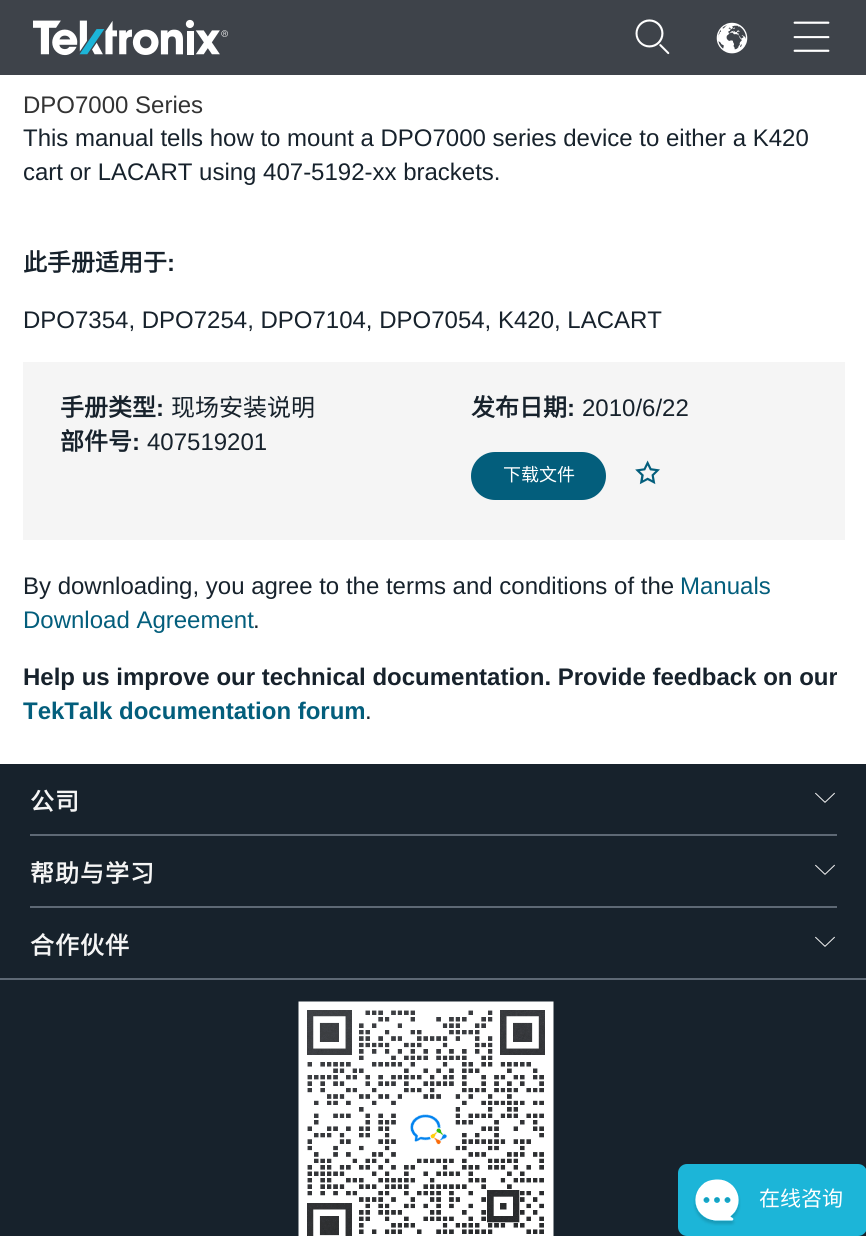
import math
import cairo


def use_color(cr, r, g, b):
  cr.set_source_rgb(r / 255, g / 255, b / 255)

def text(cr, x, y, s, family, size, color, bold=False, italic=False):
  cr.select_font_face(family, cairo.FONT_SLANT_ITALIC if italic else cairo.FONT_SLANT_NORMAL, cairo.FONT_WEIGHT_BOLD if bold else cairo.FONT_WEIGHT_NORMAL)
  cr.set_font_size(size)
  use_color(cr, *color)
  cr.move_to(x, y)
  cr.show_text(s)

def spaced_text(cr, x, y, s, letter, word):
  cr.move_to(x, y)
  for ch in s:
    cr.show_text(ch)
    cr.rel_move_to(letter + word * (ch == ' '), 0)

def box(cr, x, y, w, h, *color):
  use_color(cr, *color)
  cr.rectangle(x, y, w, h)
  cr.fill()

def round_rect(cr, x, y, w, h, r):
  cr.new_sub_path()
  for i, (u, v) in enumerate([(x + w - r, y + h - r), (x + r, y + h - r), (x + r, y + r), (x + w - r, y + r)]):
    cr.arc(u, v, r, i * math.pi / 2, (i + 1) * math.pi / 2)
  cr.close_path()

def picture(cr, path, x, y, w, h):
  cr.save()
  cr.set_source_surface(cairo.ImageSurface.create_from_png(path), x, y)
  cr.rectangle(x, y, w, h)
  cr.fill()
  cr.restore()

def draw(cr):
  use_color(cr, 255, 255, 255)
  cr.paint()
  box(cr, 0, 0, 866, 75, 62, 67, 74)
  picture(cr, "img_01.png", 33, 19, 195, 37)
  picture(cr, "img_02.png", 635, 19, 35, 36)
  picture(cr, "img_03.png", 716, 22, 32, 32)
  picture(cr, "img_04.png", 793, 21, 37, 31)
  box(cr, 23, 362, 822, 178, 245, 245, 245)
  use_color(cr, 3, 94, 124)
  round_rect(cr, 471, 452, 135, 48, 24)
  cr.fill()
  picture(cr, "img_05.png", 635, 460, 25, 25)
  box(cr, 0, 764, 866, 472, 23, 34, 44)
  picture(cr, "img_06.png", 815, 792, 20, 11)
  box(cr, 30, 834, 807, 2, 94, 105, 117)
  picture(cr, "img_06.png", 815, 864, 20, 11)
  box(cr, 30, 906, 807, 2, 94, 105, 117)
  picture(cr, "img_06.png", 815, 936, 20, 11)
  box(cr, 0, 978, 866, 2, 94, 105, 117)
  picture(cr, "img_07.png", 298, 1001, 256, 235)
  use_color(cr, 28, 181, 216)
  round_rect(cr, 678, 1164, 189, 72, 9)
  cr.fill()
  picture(cr, "img_08.png", 693, 1179, 48, 47)
  text(cr, 23, 113, "DPO7000 Series", "Liberation Sans", 24, (51, 51, 51))
  text(cr, 23, 146, "This manual tells how to mount a DPO7000 series device to either a K420", "Liberation Sans", 24, (23, 34, 44))
  text(cr, 23, 180, "cart or LACART using 407-5192-xx brackets.", "Liberation Sans", 24, (23, 34, 44))
  text(cr, 23, 271, "此手册适用于", "Noto Sans CJK SC", 24, (23, 34, 44), bold=True)
  text(cr, 167, 271, ":", "Liberation Sans", 24, (23, 34, 44), bold=True)
  text(cr, 23, 328, "DPO7354, DPO7254, DPO7104, DPO7054, K420, LACART", "Liberation Sans", 24, (23, 34, 44))
  text(cr, 60, 416, "手册类型", "Noto Sans CJK SC", 24, (23, 34, 44), bold=True)
  text(cr, 156, 416, ":", "Liberation Sans", 24, (23, 34, 44), bold=True)
  text(cr, 171, 416, "现场安装说明", "Noto Sans CJK SC", 24, (23, 34, 44))
  text(cr, 60, 450, "部件号", "Noto Sans CJK SC", 24, (23, 34, 44), bold=True)
  text(cr, 132, 450, ":", "Liberation Sans", 24, (23, 34, 44), bold=True)
  text(cr, 147, 450, "407519201", "Liberation Sans", 24, (23, 34, 44))
  text(cr, 471, 416, "发布日期", "Noto Sans CJK SC", 24, (23, 34, 44), bold=True)
  text(cr, 567, 416, ":", "Liberation Sans", 24, (23, 34, 44), bold=True)
  text(cr, 582, 416, "2010/6/22", "Liberation Sans", 24, (23, 34, 44))
  text(cr, 503, 481, "下载文件", "Noto Sans CJK SC", 18, (255, 255, 255))
  text(cr, 23, 594, "By downloading, you agree to the terms and conditions of the", "Liberation Sans", 24, (23, 34, 44))
  text(cr, 680, 594, "Manuals", "Liberation Sans", 24, (3, 94, 124))
  text(cr, 23, 628, "Download Agreement", "Liberation Sans", 24, (3, 94, 124))
  text(cr, 253, 628, ".", "Liberation Sans", 24, (23, 34, 44))
  text(cr, 23, 685, "Help us improve our technical documentation. Provide feedback on our", "Liberation Sans", 24, (23, 34, 44), bold=True)
  text(cr, 23, 719, "TekTalk documentation forum", "Liberation Sans", 24, (3, 94, 124), bold=True)
  text(cr, 365, 719, ".", "Liberation Sans", 24, (23, 34, 44))
  cr.select_font_face("Noto Sans CJK SC", cairo.FONT_SLANT_NORMAL, cairo.FONT_WEIGHT_BOLD)
  use_color(cr, 245, 245, 245)
  spaced_text(cr, 30, 810, "公司", 1, 0)
  spaced_text(cr, 30, 882, "帮助与学习", 1, 0)
  spaced_text(cr, 30, 954, "合作伙伴", 1, 0)
  text(cr, 759, 1206, "在线咨询", "Noto Sans CJK SC", 21, (255, 255, 255))


surface = cairo.ImageSurface(cairo.FORMAT_RGB24, 866, 1236)
cr = cairo.Context(surface)
options = cairo.FontOptions()
options.set_hint_metrics(cairo.HINT_METRICS_OFF)
options.set_hint_style(cairo.HINT_STYLE_NONE)
cr.set_font_options(options)
cr.set_miter_limit(4)
draw(cr)
surface.write_to_png("out.png")
